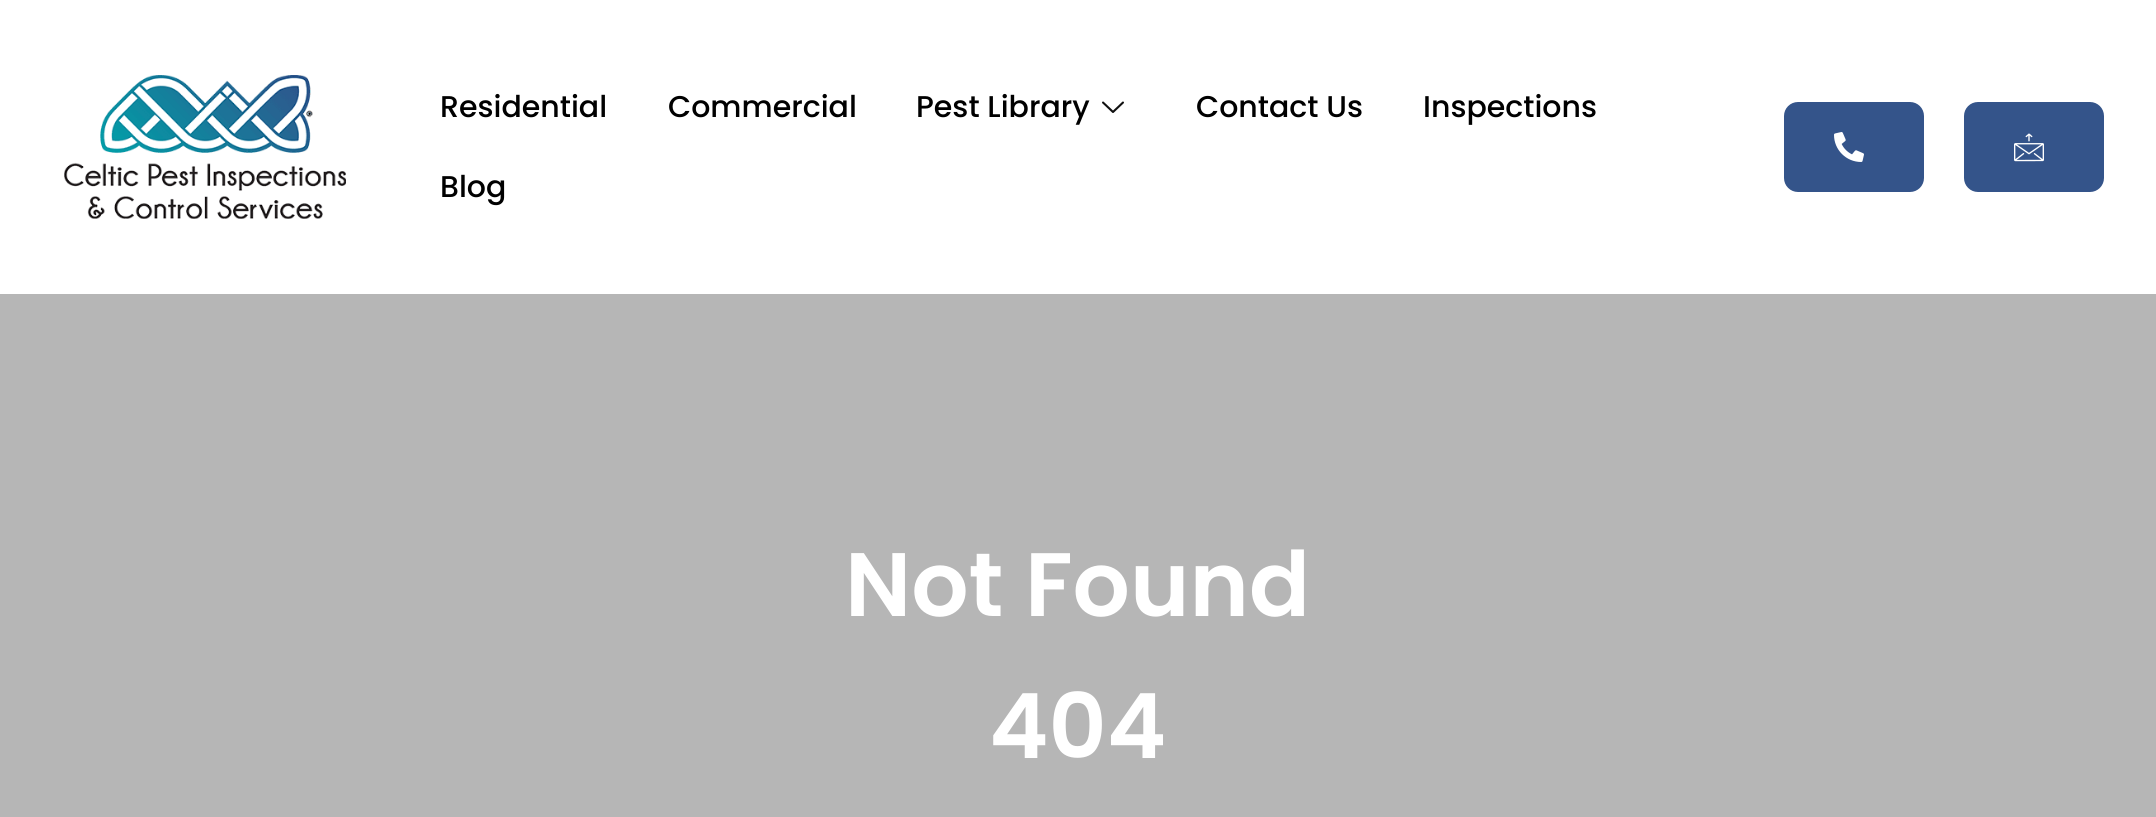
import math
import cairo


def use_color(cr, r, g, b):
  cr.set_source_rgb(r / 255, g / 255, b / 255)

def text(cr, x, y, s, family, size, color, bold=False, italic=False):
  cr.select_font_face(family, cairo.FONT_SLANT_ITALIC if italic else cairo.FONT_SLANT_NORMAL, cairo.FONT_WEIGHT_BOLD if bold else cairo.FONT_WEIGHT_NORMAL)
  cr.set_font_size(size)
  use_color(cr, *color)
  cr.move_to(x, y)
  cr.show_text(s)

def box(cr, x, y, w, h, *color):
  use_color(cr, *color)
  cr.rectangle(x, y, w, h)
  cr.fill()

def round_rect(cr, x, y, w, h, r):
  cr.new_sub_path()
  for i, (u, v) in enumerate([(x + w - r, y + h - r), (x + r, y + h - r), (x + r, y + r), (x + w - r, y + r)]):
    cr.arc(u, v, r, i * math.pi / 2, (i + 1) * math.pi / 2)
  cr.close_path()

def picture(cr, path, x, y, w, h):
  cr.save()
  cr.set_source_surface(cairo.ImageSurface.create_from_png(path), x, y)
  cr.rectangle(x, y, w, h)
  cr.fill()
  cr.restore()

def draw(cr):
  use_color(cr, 255, 255, 255)
  cr.paint()
  picture(cr, "img_01.png", 64, 75, 282, 144)
  picture(cr, "img_02.png", 1102, 101, 22, 12)
  use_color(cr, 52, 84, 138)
  round_rect(cr, 1784, 102, 140, 90, 14)
  cr.fill()
  picture(cr, "img_03.png", 1834, 132, 30, 30)
  round_rect(cr, 1964, 102, 140, 90, 14)
  cr.fill()
  picture(cr, "img_04.png", 2014, 133, 30, 29)
  box(cr, 0, 294, 2156, 523, 182, 182, 182)
  text(cr, 440, 117, "Residential", "Poppins Medium", 30, (0, 0, 0))
  text(cr, 668, 117, "Commercial", "Poppins Medium", 30, (0, 0, 0))
  text(cr, 916, 117, "Pest Library", "Poppins Medium", 30, (0, 0, 0))
  text(cr, 1196, 117, "Contact Us", "Poppins Medium", 30, (0, 0, 0))
  text(cr, 1423, 117, "Inspections", "Poppins Medium", 30, (0, 0, 0))
  text(cr, 440, 197, "Blog", "Poppins Medium", 30, (0, 0, 0))
  text(cr, 845, 616, "Not Found", "Poppins SemiBold", 90, (255, 255, 255))
  text(cr, 989, 758, "404", "Poppins SemiBold", 90, (255, 255, 255))


surface = cairo.ImageSurface(cairo.FORMAT_RGB24, 2156, 817)
cr = cairo.Context(surface)
options = cairo.FontOptions()
options.set_hint_metrics(cairo.HINT_METRICS_OFF)
options.set_hint_style(cairo.HINT_STYLE_NONE)
cr.set_font_options(options)
cr.set_miter_limit(4)
draw(cr)
surface.write_to_png("out.png")
